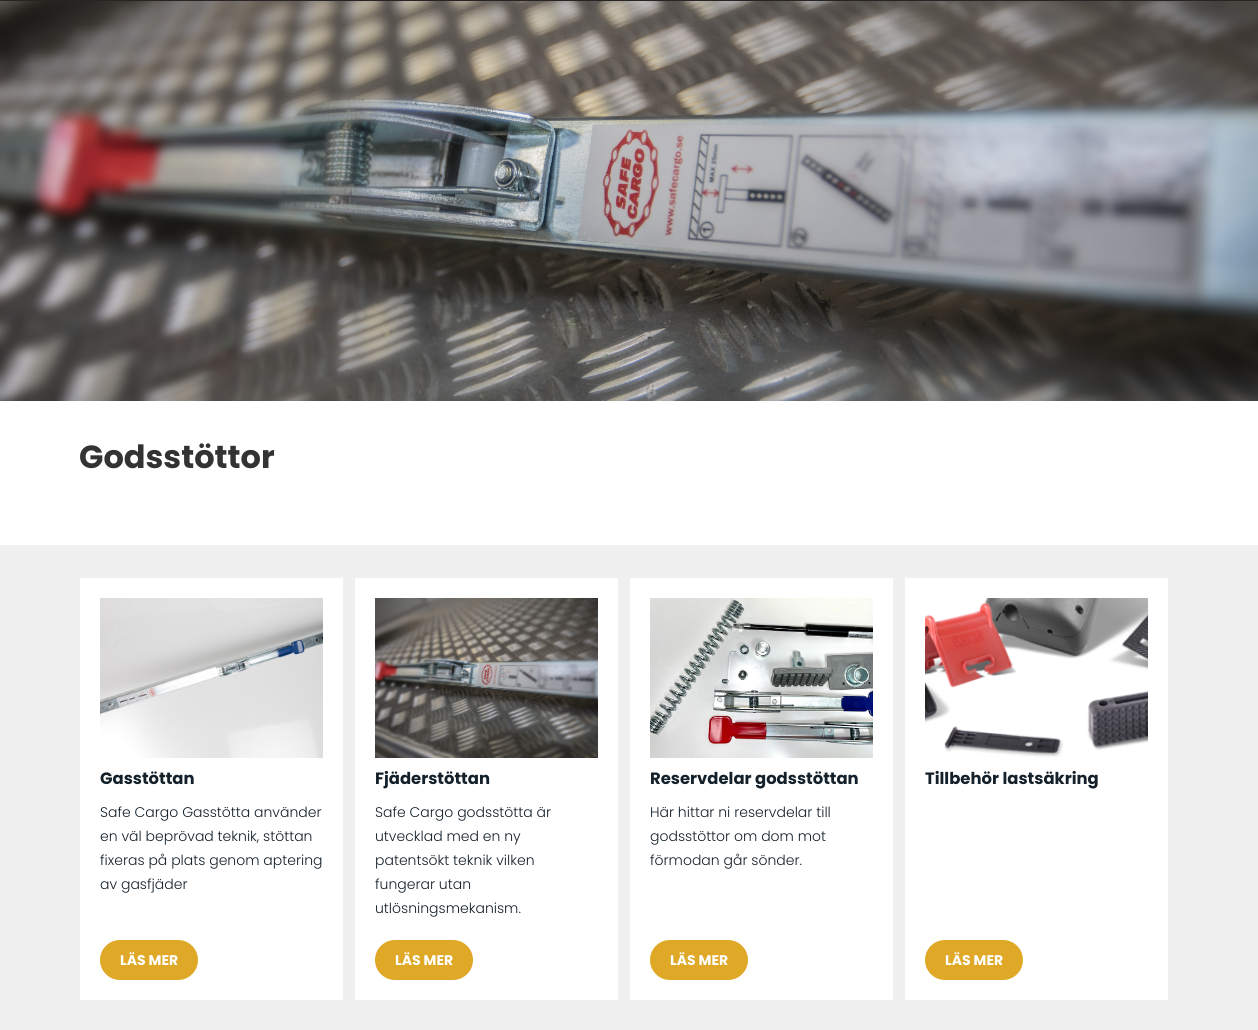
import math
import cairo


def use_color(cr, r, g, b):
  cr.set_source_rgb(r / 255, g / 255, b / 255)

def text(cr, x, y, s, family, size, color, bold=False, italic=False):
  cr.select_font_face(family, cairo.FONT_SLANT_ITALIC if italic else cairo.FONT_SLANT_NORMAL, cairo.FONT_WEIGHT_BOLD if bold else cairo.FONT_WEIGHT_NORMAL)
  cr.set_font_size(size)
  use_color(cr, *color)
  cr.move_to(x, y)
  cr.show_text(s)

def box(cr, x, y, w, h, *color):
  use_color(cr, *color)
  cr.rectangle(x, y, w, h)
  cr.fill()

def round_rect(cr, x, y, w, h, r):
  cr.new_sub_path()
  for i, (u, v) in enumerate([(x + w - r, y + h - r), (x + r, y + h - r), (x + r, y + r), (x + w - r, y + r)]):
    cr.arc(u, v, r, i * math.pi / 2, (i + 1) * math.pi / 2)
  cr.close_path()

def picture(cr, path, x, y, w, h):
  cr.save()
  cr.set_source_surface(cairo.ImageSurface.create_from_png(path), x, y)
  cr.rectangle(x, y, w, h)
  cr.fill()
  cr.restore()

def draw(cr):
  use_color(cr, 255, 255, 255)
  cr.paint()
  box(cr, 0, 0, 1258, 1, 38, 36, 36)
  picture(cr, "img_01.png", 0, 1, 1258, 400)
  box(cr, 0, 545, 1258, 485, 240, 240, 240)
  box(cr, 80, 578, 263, 422, 255, 255, 255)
  picture(cr, "img_02.png", 100, 598, 223, 160)
  use_color(cr, 223, 169, 39)
  round_rect(cr, 100, 940, 98, 40, 20)
  cr.fill()
  box(cr, 355, 578, 263, 422, 255, 255, 255)
  picture(cr, "img_03.png", 375, 598, 223, 160)
  use_color(cr, 223, 169, 39)
  round_rect(cr, 375, 940, 98, 40, 20)
  cr.fill()
  box(cr, 630, 578, 263, 422, 255, 255, 255)
  picture(cr, "img_04.png", 650, 598, 223, 160)
  use_color(cr, 223, 169, 39)
  round_rect(cr, 650, 940, 98, 40, 20)
  cr.fill()
  box(cr, 905, 578, 263, 422, 255, 255, 255)
  picture(cr, "img_05.png", 925, 598, 223, 159)
  use_color(cr, 223, 169, 39)
  round_rect(cr, 925, 940, 98, 40, 20)
  cr.fill()
  text(cr, 79, 468, "Godsstöttor", "Poppins", 32, (51, 51, 51), bold=True)
  text(cr, 100, 784, "Gasstöttan", "Poppins", 16.4, (20, 33, 42), bold=True)
  text(cr, 100, 817, "Safe Cargo Gasstötta använder", "Poppins Light", 14, (20, 33, 42))
  text(cr, 100, 841, "en väl beprövad teknik, stöttan", "Poppins Light", 14, (20, 33, 42))
  text(cr, 100, 865, "fixeras på plats genom aptering", "Poppins Light", 14, (20, 33, 42))
  text(cr, 100, 889, "av gasfjäder", "Poppins Light", 14, (20, 33, 42))
  text(cr, 120, 965, "LÄS MER", "Poppins", 14, (255, 255, 255), bold=True)
  text(cr, 375, 784, "Fjäderstöttan", "Poppins", 16.4, (20, 33, 42), bold=True)
  text(cr, 375, 817, "Safe Cargo godsstötta är", "Poppins Light", 14, (20, 33, 42))
  text(cr, 375, 841, "utvecklad med en ny", "Poppins Light", 14, (20, 33, 42))
  text(cr, 375, 865, "patentsökt teknik vilken", "Poppins Light", 14, (20, 33, 42))
  text(cr, 375, 889, "fungerar utan", "Poppins Light", 14, (20, 33, 42))
  text(cr, 375, 913, "utlösningsmekanism.", "Poppins Light", 14, (20, 33, 42))
  text(cr, 395, 965, "LÄS MER", "Poppins", 14, (255, 255, 255), bold=True)
  text(cr, 650, 784, "Reservdelar godsstöttan", "Poppins", 16.4, (20, 33, 42), bold=True)
  text(cr, 650, 817, "Här hittar ni reservdelar till", "Poppins Light", 14, (20, 33, 42))
  text(cr, 650, 841, "godsstöttor om dom mot", "Poppins Light", 14, (20, 33, 42))
  text(cr, 650, 865, "förmodan går sönder.", "Poppins Light", 14, (20, 33, 42))
  text(cr, 670, 965, "LÄS MER", "Poppins", 14, (255, 255, 255), bold=True)
  text(cr, 925, 784, "Tillbehör lastsäkring", "Poppins", 16.4, (20, 33, 42), bold=True)
  text(cr, 945, 965, "LÄS MER", "Poppins", 14, (255, 255, 255), bold=True)


surface = cairo.ImageSurface(cairo.FORMAT_RGB24, 1258, 1030)
cr = cairo.Context(surface)
options = cairo.FontOptions()
options.set_hint_metrics(cairo.HINT_METRICS_OFF)
options.set_hint_style(cairo.HINT_STYLE_NONE)
cr.set_font_options(options)
cr.set_miter_limit(4)
draw(cr)
surface.write_to_png("out.png")
